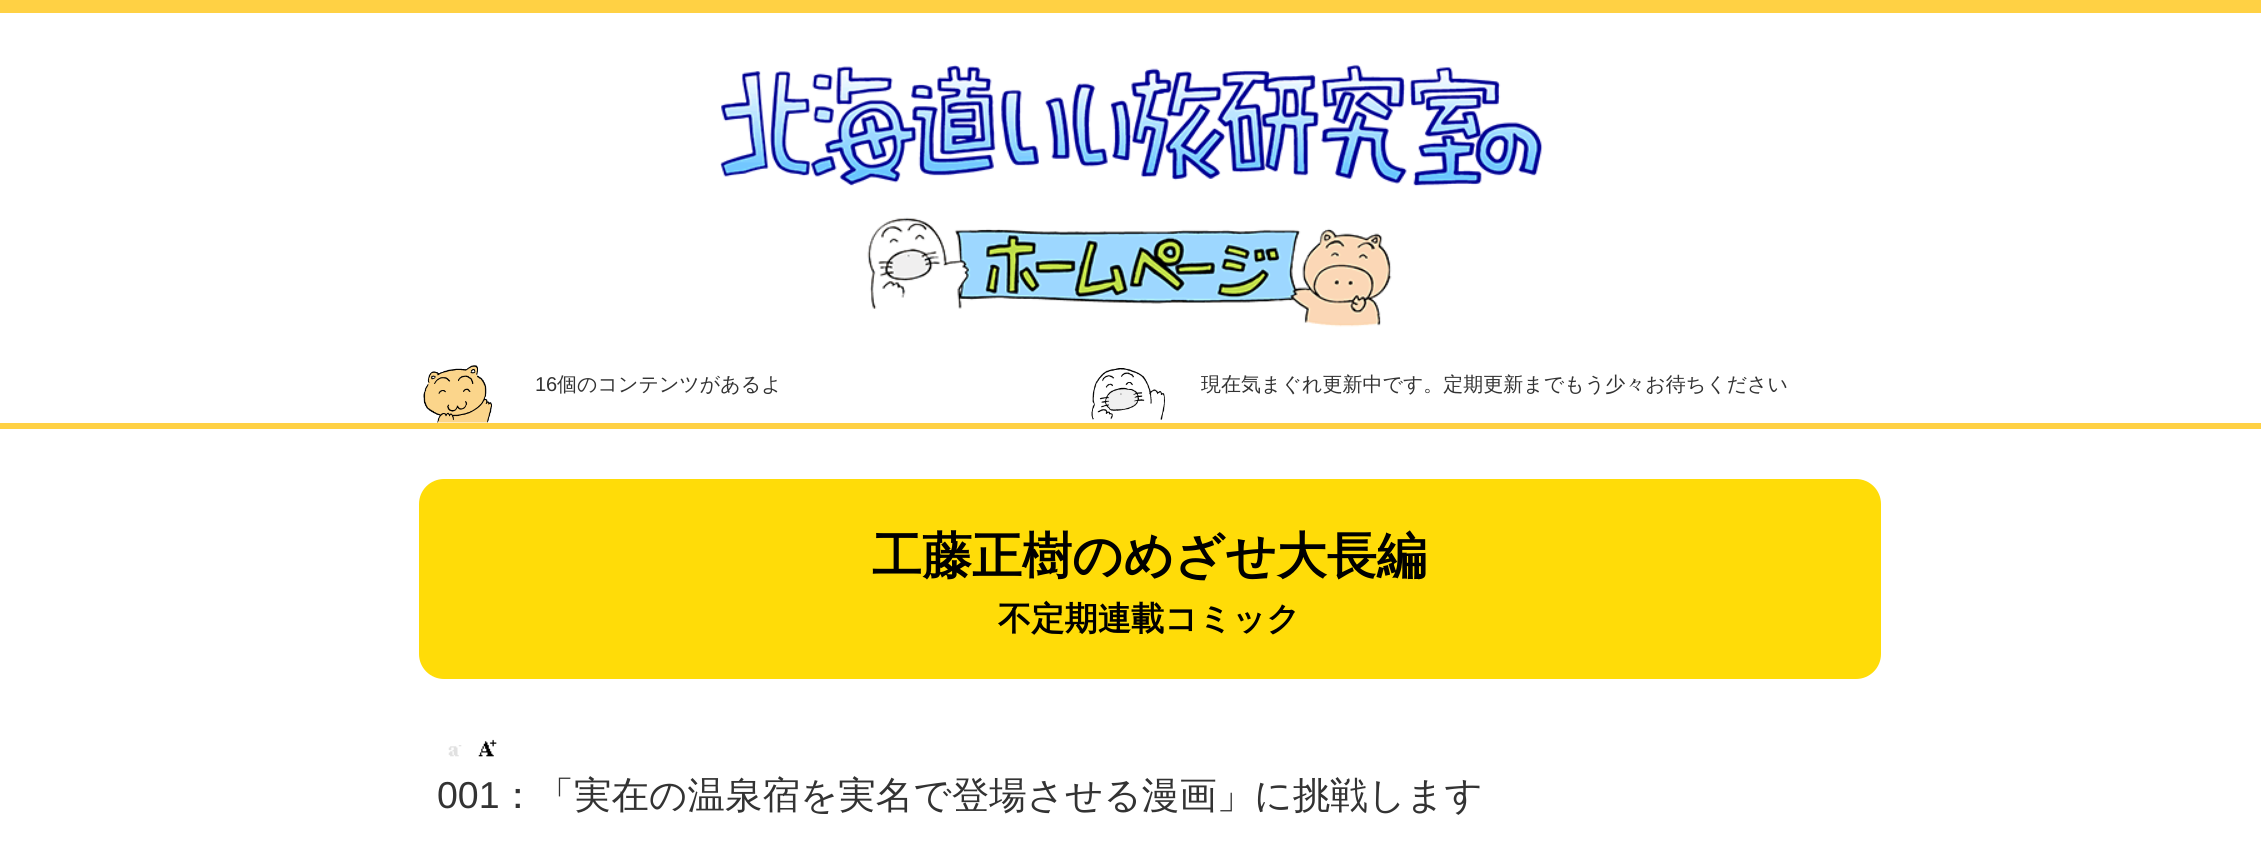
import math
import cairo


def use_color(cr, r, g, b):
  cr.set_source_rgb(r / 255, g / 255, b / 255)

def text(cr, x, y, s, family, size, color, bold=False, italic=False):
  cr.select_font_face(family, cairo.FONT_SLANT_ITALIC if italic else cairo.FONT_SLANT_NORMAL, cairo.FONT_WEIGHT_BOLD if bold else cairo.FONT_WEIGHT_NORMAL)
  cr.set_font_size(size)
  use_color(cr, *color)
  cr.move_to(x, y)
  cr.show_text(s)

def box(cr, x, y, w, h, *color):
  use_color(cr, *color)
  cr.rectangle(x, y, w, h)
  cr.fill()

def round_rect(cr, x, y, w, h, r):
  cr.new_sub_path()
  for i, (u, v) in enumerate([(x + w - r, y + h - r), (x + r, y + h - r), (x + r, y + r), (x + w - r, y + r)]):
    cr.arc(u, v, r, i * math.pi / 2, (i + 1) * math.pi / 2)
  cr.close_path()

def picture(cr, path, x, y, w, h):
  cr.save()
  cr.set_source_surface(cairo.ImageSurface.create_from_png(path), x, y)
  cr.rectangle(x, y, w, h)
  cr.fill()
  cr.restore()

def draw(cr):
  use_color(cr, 255, 255, 255)
  cr.paint()
  box(cr, 0, 0, 2261, 13, 255, 209, 68)
  picture(cr, "img_01.png", 720, 64, 823, 263)
  picture(cr, "img_02.png", 423, 365, 69, 58)
  picture(cr, "img_03.png", 1091, 368, 74, 52)
  box(cr, 0, 423, 2261, 6, 255, 209, 68)
  use_color(cr, 255, 220, 8)
  round_rect(cr, 419, 479, 1462, 200, 25)
  cr.fill()
  picture(cr, "img_04.png", 448, 745, 14, 12)
  picture(cr, "img_05.png", 478, 739, 19, 18)
  text(cr, 535, 391, "16", "Liberation Sans", 20, (51, 51, 51))
  text(cr, 557, 391, "個のコンテンツがあるよ", "WenQuanYi Zen Hei Medium", 20, (51, 51, 51))
  text(cr, 1201, 391, "現在気まぐれ更新中です。定期更新までもう少々お待ちください", "WenQuanYi Zen Hei Medium", 20, (51, 51, 51))
  text(cr, 872, 573, "工藤正樹のめざせ大長編", "WenQuanYi Zen Hei", 50, (0, 0, 0), bold=True)
  text(cr, 998, 630, "不定期連載コミック", "WenQuanYi Zen Hei", 33.25, (0, 0, 0), bold=True)
  text(cr, 437, 808, "001", "Liberation Sans", 37.5, (51, 51, 51))
  text(cr, 499, 808, "：「実在の温泉宿を実名で登場させる漫画」に挑戦します", "WenQuanYi Zen Hei Medium", 37.5, (51, 51, 51))


surface = cairo.ImageSurface(cairo.FORMAT_RGB24, 2261, 856)
cr = cairo.Context(surface)
options = cairo.FontOptions()
options.set_hint_metrics(cairo.HINT_METRICS_OFF)
options.set_hint_style(cairo.HINT_STYLE_NONE)
cr.set_font_options(options)
cr.set_miter_limit(4)
draw(cr)
surface.write_to_png("out.png")
